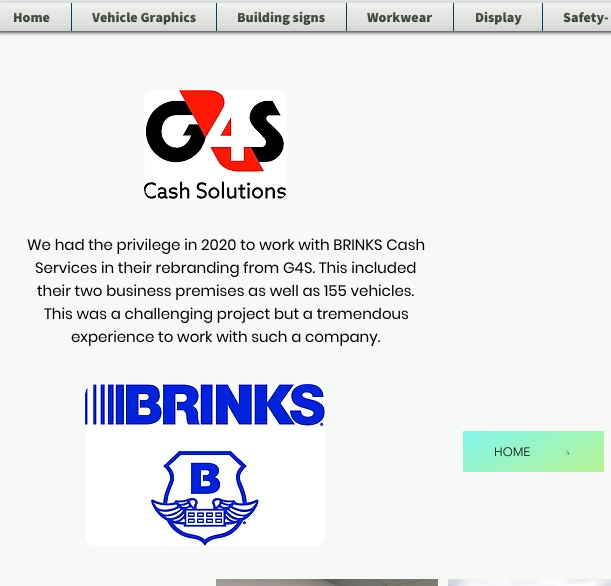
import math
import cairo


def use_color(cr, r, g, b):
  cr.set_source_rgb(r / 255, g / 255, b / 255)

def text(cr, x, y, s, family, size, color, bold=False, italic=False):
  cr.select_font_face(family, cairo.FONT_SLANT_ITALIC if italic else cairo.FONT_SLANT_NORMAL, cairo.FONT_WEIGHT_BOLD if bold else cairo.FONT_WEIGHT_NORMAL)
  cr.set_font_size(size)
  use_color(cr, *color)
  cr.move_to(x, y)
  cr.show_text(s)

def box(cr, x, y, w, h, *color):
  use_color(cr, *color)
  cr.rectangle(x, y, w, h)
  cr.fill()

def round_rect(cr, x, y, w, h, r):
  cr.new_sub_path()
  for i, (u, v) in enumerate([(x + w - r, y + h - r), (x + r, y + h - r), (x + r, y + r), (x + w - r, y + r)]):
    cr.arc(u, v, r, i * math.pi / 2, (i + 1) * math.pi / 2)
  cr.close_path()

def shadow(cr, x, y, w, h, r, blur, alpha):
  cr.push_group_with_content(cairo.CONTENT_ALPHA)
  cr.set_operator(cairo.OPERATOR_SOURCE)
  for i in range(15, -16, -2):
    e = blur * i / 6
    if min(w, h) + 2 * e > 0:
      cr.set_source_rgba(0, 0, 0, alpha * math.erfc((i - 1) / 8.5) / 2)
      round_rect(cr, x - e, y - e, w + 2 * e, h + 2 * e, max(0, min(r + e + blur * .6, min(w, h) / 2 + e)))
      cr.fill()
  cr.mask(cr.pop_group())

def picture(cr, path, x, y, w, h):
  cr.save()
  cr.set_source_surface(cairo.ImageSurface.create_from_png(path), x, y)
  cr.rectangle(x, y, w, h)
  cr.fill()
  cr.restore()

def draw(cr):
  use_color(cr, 255, 255, 255)
  cr.paint()
  picture(cr, "img_01.png", 0, 0, 611, 31)
  box(cr, 0, 31, 611, 555, 246, 249, 245)
  cr.save()
  cr.rectangle(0, 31, 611, 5)
  cr.clip()
  use_color(cr, 0, 0, 0)
  shadow(cr, 0, -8, 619, 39, 0, 2.5, 0.7)
  cr.restore()
  cr.set_source_rgba(0.965, 0.976, 0.961, 0.6)
  cr.rectangle(0, 0, 611, 31)
  cr.fill()
  use_color(cr, 0, 0, 0)
  shadow(cr, -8, 4, 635, 28, 10, 2, 0.6)
  picture(cr, "img_02.png", 0, 3, 2, 1)
  picture(cr, "img_03.png", 0, 3, 2, 28)
  use_color(cr, 246, 249, 245)
  cr.new_path()
  cr.move_to(2, 3)
  cr.line_to(71, 3)
  cr.line_to(71, 31)
  cr.line_to(2, 31)
  cr.curve_to(-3.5, 31, -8, 26.5, -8, 21)
  cr.line_to(-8, 13)
  cr.curve_to(-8, 7.5, -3.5, 3, 2, 3)
  cr.close_path()
  cr.fill()
  box(cr, 72, 3, 144, 28, 246, 249, 245)
  box(cr, 71, 3, 1, 28, 12, 60, 96)
  box(cr, 217, 3, 129, 28, 246, 249, 245)
  box(cr, 216, 3, 1, 28, 12, 60, 96)
  box(cr, 347, 3, 106, 28, 246, 249, 245)
  box(cr, 346, 3, 1, 28, 12, 60, 96)
  box(cr, 454, 3, 88, 28, 246, 249, 245)
  box(cr, 453, 3, 1, 28, 12, 60, 96)
  box(cr, 543, 3, 68, 28, 246, 249, 245)
  box(cr, 542, 3, 1, 28, 12, 60, 96)
  picture(cr, "img_16.png", 144, 90, 143, 110)
  picture(cr, "img_17.png", 85, 384, 240, 162)
  gradient = cairo.LinearGradient(507, 406, 560, 497)
  gradient.add_color_stop_rgba(0, 0.514, 0.961, 0.922, 1)
  gradient.add_color_stop_rgba(1, 0.71, 0.953, 0.584, 1)
  cr.set_source(gradient)
  cr.rectangle(463, 431, 141, 41)
  cr.fill()
  use_color(cr, 0, 0, 0)
  cr.set_fill_rule(cairo.FILL_RULE_EVEN_ODD)
  cr.new_path()
  cr.move_to(566, 450)
  cr.curve_to(570.5, 455.5, 570.5, 454, 563.5, 454)
  cr.line_to(537, 454)
  cr.line_to(568.5, 454)
  cr.close_path()
  cr.fill()
  picture(cr, "img_18.png", 216, 579, 222, 7)
  picture(cr, "img_19.png", 448, 579, 163, 7)
  text(cr, 13, 22, "Home", "Assistant ExtraBold", 14, (9, 20, 5))
  picture(cr, "img_04.png", 0, 3, 71, 20)
  picture(cr, "img_05.png", 0, 3, 71, 28)
  text(cr, 92, 22, "Vehicle Graphics", "Assistant ExtraBold", 14, (9, 20, 5))
  picture(cr, "img_06.png", 72, 3, 144, 22)
  picture(cr, "img_07.png", 72, 3, 144, 28)
  text(cr, 237, 22, "Building signs", "Assistant ExtraBold", 14, (9, 20, 5))
  picture(cr, "img_08.png", 217, 3, 129, 22)
  picture(cr, "img_09.png", 217, 3, 129, 28)
  text(cr, 367, 22, "Workwear", "Assistant ExtraBold", 14, (9, 20, 5))
  picture(cr, "img_10.png", 347, 3, 106, 20)
  picture(cr, "img_11.png", 347, 3, 106, 28)
  text(cr, 475, 22, "Display", "Assistant ExtraBold", 14, (9, 20, 5))
  picture(cr, "img_12.png", 454, 3, 88, 22)
  picture(cr, "img_13.png", 454, 3, 88, 28)
  text(cr, 563, 22, "Safety-", "Assistant ExtraBold", 14, (9, 20, 5))
  picture(cr, "img_14.png", 543, 3, 68, 22)
  picture(cr, "img_15.png", 543, 3, 68, 28)
  text(cr, 27, 250, "We had the privilege in 2020 to work with BRINKS Cash", "Poppins", 15, (0, 0, 0))
  text(cr, 35, 273, "Services in their rebranding from G4S. This included", "Poppins", 15, (0, 0, 0))
  text(cr, 37, 296, "their two business premises as well as 155 vehicles.", "Poppins", 15, (0, 0, 0))
  text(cr, 44, 319, "This was a challenging project but a tremendous", "Poppins", 15, (0, 0, 0))
  text(cr, 71, 342, "experience to work with such a company.", "Poppins", 15, (0, 0, 0))
  text(cr, 494, 456, "HOME", "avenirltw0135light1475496 Light", 12, (0, 0, 0))


surface = cairo.ImageSurface(cairo.FORMAT_RGB24, 611, 586)
cr = cairo.Context(surface)
options = cairo.FontOptions()
options.set_hint_metrics(cairo.HINT_METRICS_OFF)
options.set_hint_style(cairo.HINT_STYLE_NONE)
cr.set_font_options(options)
cr.set_miter_limit(4)
draw(cr)
surface.write_to_png("out.png")
